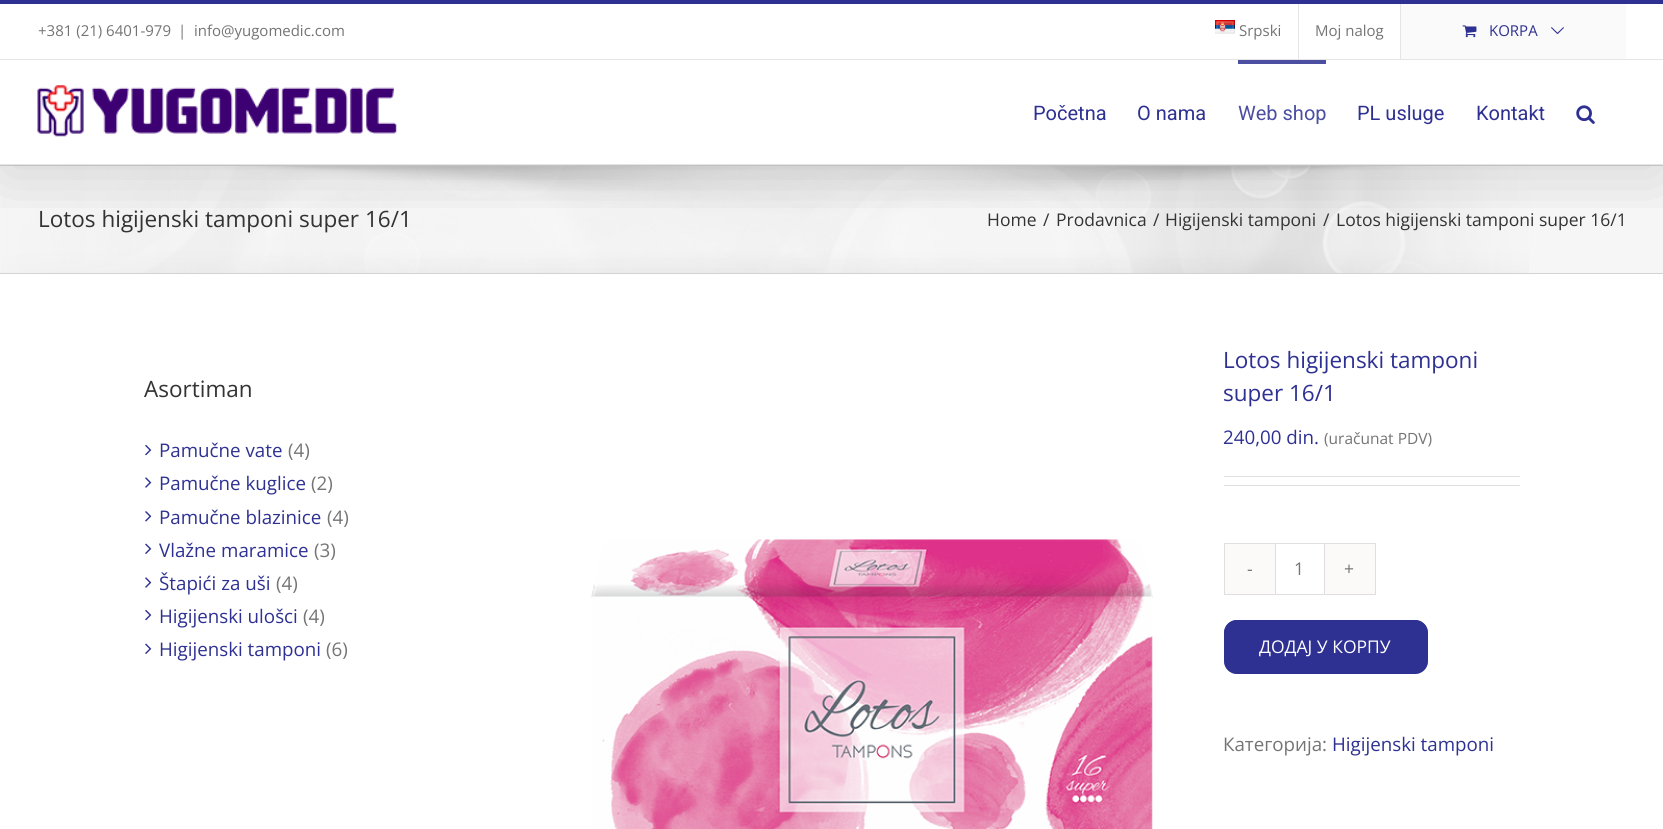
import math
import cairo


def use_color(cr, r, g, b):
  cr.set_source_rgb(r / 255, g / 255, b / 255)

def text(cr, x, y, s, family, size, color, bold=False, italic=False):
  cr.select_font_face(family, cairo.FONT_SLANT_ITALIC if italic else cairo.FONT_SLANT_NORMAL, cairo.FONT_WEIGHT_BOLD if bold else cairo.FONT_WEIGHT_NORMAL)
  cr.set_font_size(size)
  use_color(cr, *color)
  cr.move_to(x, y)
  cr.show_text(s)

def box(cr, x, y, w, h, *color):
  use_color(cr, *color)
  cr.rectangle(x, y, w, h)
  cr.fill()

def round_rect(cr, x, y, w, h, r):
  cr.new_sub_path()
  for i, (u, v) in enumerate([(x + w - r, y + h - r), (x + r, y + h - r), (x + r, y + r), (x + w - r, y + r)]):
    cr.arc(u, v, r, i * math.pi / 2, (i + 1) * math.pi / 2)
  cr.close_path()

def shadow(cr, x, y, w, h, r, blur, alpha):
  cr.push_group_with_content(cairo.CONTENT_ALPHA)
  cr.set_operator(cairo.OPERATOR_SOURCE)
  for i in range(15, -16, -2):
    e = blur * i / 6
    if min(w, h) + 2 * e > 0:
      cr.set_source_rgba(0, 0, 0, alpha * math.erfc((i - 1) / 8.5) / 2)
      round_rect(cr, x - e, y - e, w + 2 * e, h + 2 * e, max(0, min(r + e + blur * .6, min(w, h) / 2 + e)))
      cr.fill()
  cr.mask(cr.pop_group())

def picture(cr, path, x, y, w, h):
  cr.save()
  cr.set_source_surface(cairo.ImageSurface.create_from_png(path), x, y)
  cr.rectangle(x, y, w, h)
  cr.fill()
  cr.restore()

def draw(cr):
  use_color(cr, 255, 255, 255)
  cr.paint()
  box(cr, 0, 166, 1663, 107, 246, 246, 246)
  picture(cr, "img_06.png", 1, 166, 1528, 107)
  box(cr, 0, 165, 1663, 1, 210, 211, 212)
  cr.save()
  cr.rectangle(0, 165, 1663, 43)
  cr.clip()
  use_color(cr, 0, 0, 0)
  shadow(cr, 3, 15, 1658, 160, 0, 31, 0.14)
  cr.restore()
  box(cr, 0, 0, 1663, 4, 46, 49, 146)
  box(cr, 0, 59, 1663, 1, 229, 229, 229)
  picture(cr, "img_01.png", 1215, 20, 20, 14)
  box(cr, 1298, 4, 1, 55, 229, 229, 229)
  box(cr, 1400, 4, 1, 55, 229, 229, 229)
  box(cr, 1401, 4, 225, 55, 250, 250, 250)
  picture(cr, "img_02.png", 1462, 25, 15, 13)
  picture(cr, "img_03.png", 1551, 27, 13, 7)
  box(cr, 0, 164, 1663, 1, 229, 229, 229)
  picture(cr, "img_04.png", 37, 85, 360, 52)
  box(cr, 1238, 60, 88, 4, 75, 78, 161)
  picture(cr, "img_05.png", 1576, 105, 19, 19)
  box(cr, 0, 273, 1663, 1, 210, 211, 212)
  picture(cr, "img_07.png", 145, 444, 7, 12)
  picture(cr, "img_08.png", 145, 477, 7, 11)
  picture(cr, "img_09.png", 145, 511, 7, 11)
  picture(cr, "img_10.png", 145, 543, 7, 11)
  picture(cr, "img_08.png", 145, 577, 7, 11)
  picture(cr, "img_07.png", 145, 609, 7, 12)
  picture(cr, "img_10.png", 145, 643, 7, 11)
  picture(cr, "img_11.png", 591, 539, 562, 290)
  box(cr, 1224, 476, 296, 1, 224, 222, 222)
  box(cr, 1224, 485, 296, 1, 224, 222, 222)
  cr.rectangle(1224.5, 543.5, 151, 51)
  cr.set_line_width(1)
  cr.stroke()
  box(cr, 1225, 544, 50, 50, 251, 250, 249)
  box(cr, 1324, 544, 1, 50, 224, 222, 222)
  box(cr, 1275, 544, 1, 50, 224, 222, 222)
  box(cr, 1325, 544, 50, 50, 251, 250, 249)
  use_color(cr, 46, 49, 146)
  round_rect(cr, 1224, 620, 204, 54, 13)
  cr.fill()
  gradient = cairo.LinearGradient(1326, 620, 1326, 674)
  gradient.add_color_stop_rgba(0, 0.18, 0.192, 0.573, 1)
  gradient.add_color_stop_rgba(1, 0.18, 0.192, 0.573, 0.49)
  cr.set_source(gradient)
  round_rect(cr, 1224, 620, 204, 54, 13)
  cr.fill()
  text(cr, 38, 36, "+381 (21) 6401-979", "Open Sans", 15, (116, 116, 116))
  text(cr, 178, 36, "|", "Open Sans", 15, (116, 116, 116))
  text(cr, 194, 36, "info@yugomedic.com", "Open Sans", 15, (116, 116, 116))
  text(cr, 1239, 36, "Srpski", "Open Sans", 15, (116, 116, 116))
  text(cr, 1315, 36, "Moj nalog", "Open Sans", 15, (116, 116, 116))
  text(cr, 1489, 36, "KORPA", "Open Sans", 15, (46, 49, 146))
  text(cr, 1033, 120, "Početna", "Roboto", 20, (46, 49, 146))
  text(cr, 1137, 120, "O nama", "Roboto", 20, (46, 49, 146))
  text(cr, 1238, 120, "Web shop", "Roboto", 20, (75, 78, 161))
  text(cr, 1357, 120, "PL usluge", "Roboto", 20, (46, 49, 146))
  text(cr, 1476, 120, "Kontakt", "Roboto", 20, (46, 49, 146))
  text(cr, 38, 227, "Lotos higijenski tamponi super 16/1", "Open Sans", 22.5, (51, 51, 51))
  text(cr, 987, 226, "Home", "Open Sans", 17.5, (51, 51, 51))
  text(cr, 1043, 226, "/", "Open Sans", 17.5, (51, 51, 51))
  text(cr, 1056, 226, "Prodavnica", "Open Sans", 17.5, (51, 51, 51))
  text(cr, 1153, 226, "/", "Open Sans", 17.5, (51, 51, 51))
  text(cr, 1165, 226, "Higijenski tamponi", "Open Sans", 17.5, (51, 51, 51))
  text(cr, 1323, 226, "/", "Open Sans", 17.5, (51, 51, 51))
  text(cr, 1336, 226, "Lotos higijenski tamponi super 16/1", "Open Sans", 17.5, (51, 51, 51))
  text(cr, 144, 397, "Asortiman", "Open Sans", 22.5, (51, 51, 51))
  text(cr, 159, 457, "Pamučne vate", "Open Sans", 18.75, (46, 49, 146))
  text(cr, 288, 457, "(4)", "Open Sans", 18.75, (116, 116, 116))
  text(cr, 159, 490, "Pamučne kuglice", "Open Sans", 18.75, (46, 49, 146))
  text(cr, 311, 490, "(2)", "Open Sans", 18.75, (116, 116, 116))
  text(cr, 159, 524, "Pamučne blazinice", "Open Sans", 18.75, (46, 49, 146))
  text(cr, 327, 524, "(4)", "Open Sans", 18.75, (116, 116, 116))
  text(cr, 159, 557, "Vlažne maramice", "Open Sans", 18.75, (46, 49, 146))
  text(cr, 314, 557, "(3)", "Open Sans", 18.75, (116, 116, 116))
  text(cr, 159, 590, "Štapići za uši", "Open Sans", 18.75, (46, 49, 146))
  text(cr, 276, 590, "(4)", "Open Sans", 18.75, (116, 116, 116))
  text(cr, 159, 623, "Higijenski ulošci", "Open Sans", 18.75, (46, 49, 146))
  text(cr, 303, 623, "(4)", "Open Sans", 18.75, (116, 116, 116))
  text(cr, 159, 656, "Higijenski tamponi", "Open Sans", 18.75, (46, 49, 146))
  text(cr, 326, 656, "(6)", "Open Sans", 18.75, (116, 116, 116))
  text(cr, 1223, 368, "Lotos higijenski tamponi", "Open Sans", 22.5, (46, 49, 146))
  text(cr, 1223, 401, "super 16/1", "Open Sans", 22.5, (46, 49, 146))
  text(cr, 1223, 444, "240,00 din.", "Open Sans", 18.75, (46, 49, 146))
  text(cr, 1324, 444, "(uračunat PDV)", "Open Sans", 15.5, (116, 116, 116))
  text(cr, 1247, 575, "-", "Open Sans", 17.5, (116, 116, 116))
  text(cr, 1294, 575, "1", "Open Sans", 17.5, (116, 116, 116))
  text(cr, 1344, 575, "+", "Open Sans", 17.5, (116, 116, 116))
  text(cr, 1259, 653, "ДОДАЈ У КОРПУ", "Open Sans", 17.5, (255, 255, 255))
  text(cr, 1223, 751, "Категорија:", "Open Sans", 18.75, (116, 116, 116))
  text(cr, 1332, 751, "Higijenski tamponi", "Open Sans", 18.75, (46, 49, 146))


surface = cairo.ImageSurface(cairo.FORMAT_RGB24, 1663, 829)
cr = cairo.Context(surface)
options = cairo.FontOptions()
options.set_hint_metrics(cairo.HINT_METRICS_OFF)
options.set_hint_style(cairo.HINT_STYLE_NONE)
cr.set_font_options(options)
cr.set_miter_limit(4)
draw(cr)
surface.write_to_png("out.png")
